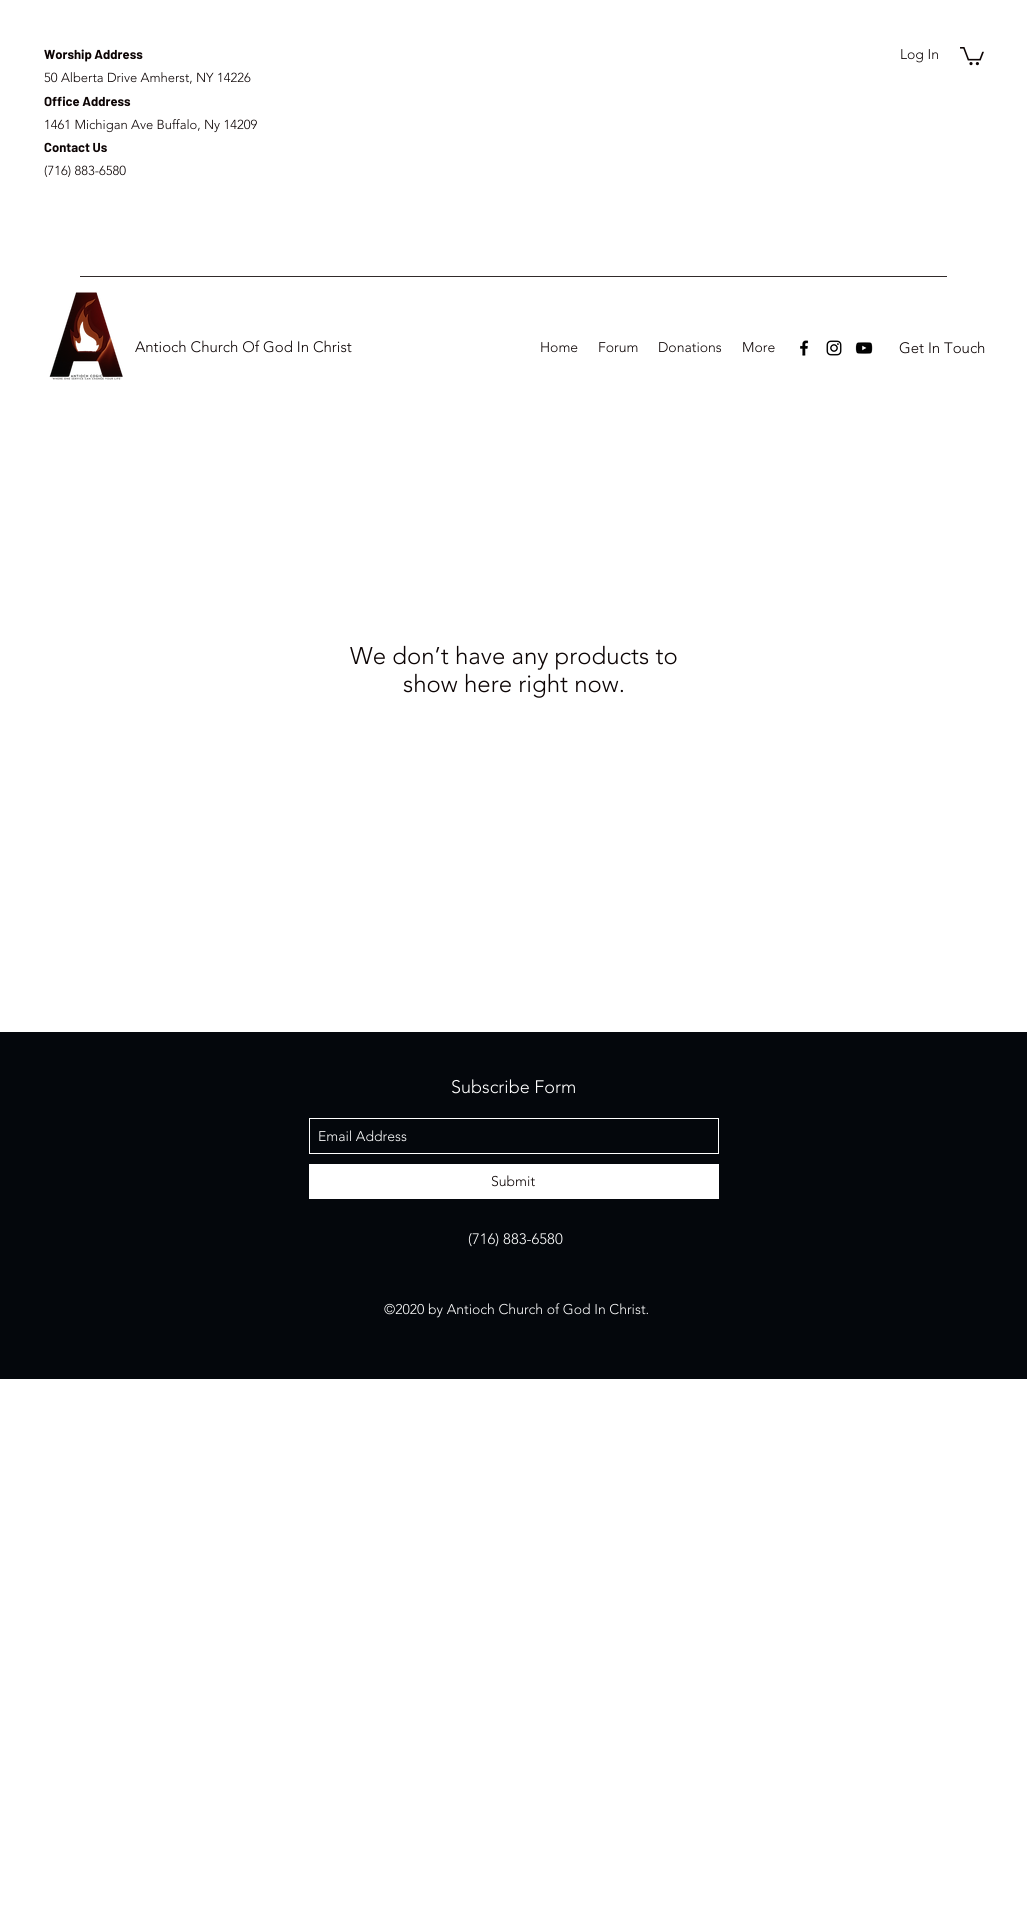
import math
import cairo


def use_color(cr, r, g, b):
  cr.set_source_rgb(r / 255, g / 255, b / 255)

def text(cr, x, y, s, family, size, color, bold=False, italic=False):
  cr.select_font_face(family, cairo.FONT_SLANT_ITALIC if italic else cairo.FONT_SLANT_NORMAL, cairo.FONT_WEIGHT_BOLD if bold else cairo.FONT_WEIGHT_NORMAL)
  cr.set_font_size(size)
  use_color(cr, *color)
  cr.move_to(x, y)
  cr.show_text(s)

def box(cr, x, y, w, h, *color):
  use_color(cr, *color)
  cr.rectangle(x, y, w, h)
  cr.fill()

def picture(cr, path, x, y, w, h):
  cr.save()
  cr.set_source_surface(cairo.ImageSurface.create_from_png(path), x, y)
  cr.rectangle(x, y, w, h)
  cr.fill()
  cr.restore()

def draw(cr):
  use_color(cr, 255, 255, 255)
  cr.paint()
  picture(cr, "img_01.png", 960, 47, 24, 19)
  box(cr, 80, 276, 867, 1, 48, 42, 42)
  picture(cr, "img_02.png", 49, 292, 74, 88)
  picture(cr, "img_03.png", 800, 340, 9, 16)
  picture(cr, "img_04.png", 826, 340, 16, 16)
  picture(cr, "img_05.png", 855, 342, 18, 12)
  box(cr, 0, 1032, 1027, 347, 4, 7, 12)
  cr.rectangle(309.5, 1118.5, 409, 35)
  use_color(cr, 255, 255, 255)
  cr.set_line_width(1)
  cr.stroke()
  box(cr, 309, 1164, 410, 35, 255, 255, 255)
  text(cr, 44, 59, "Worship Address", "Barlow", 13, (12, 4, 4), bold=True)
  text(cr, 44, 82, "50 Alberta Drive Amherst, NY 14226", "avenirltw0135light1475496 Light", 13, (12, 4, 4))
  text(cr, 44, 106, "Office Address", "Barlow", 13, (12, 4, 4), bold=True)
  text(cr, 44, 129, "1461 Michigan Ave Buffalo, Ny 14209", "avenirltw0135light1475496 Light", 13, (12, 4, 4))
  text(cr, 44, 152, "Contact Us", "Barlow", 13, (12, 4, 4), bold=True)
  text(cr, 44, 175, "(716) 883-6580", "avenirltw0135light1475496 Light", 13, (12, 4, 4))
  text(cr, 900, 59, "Log In", "avenirltw0135light1475496 Light", 14, (12, 4, 4))
  text(cr, 135, 352, "Antioch Church Of God In Christ", "avenirltw0135light1475496 Light", 15, (12, 4, 4))
  text(cr, 540, 352, "Home", "avenirltw0135light1475496 Light", 14, (12, 4, 4))
  text(cr, 598, 352, "Forum", "avenirltw0135light1475496 Light", 14, (12, 4, 4))
  text(cr, 658, 352, "Donations", "avenirltw0135light1475496 Light", 14, (12, 4, 4))
  text(cr, 742, 352, "More", "avenirltw0135light1475496 Light", 14, (12, 4, 4))
  text(cr, 899, 353, "Get In Touch", "avenirltw0135light1475496 Light", 15, (12, 4, 4))
  text(cr, 350, 664, "We don’t have any products to", "avenirltw0135light1475496 Light", 24, (12, 4, 4))
  text(cr, 403, 692, "show here right now.", "avenirltw0135light1475496 Light", 24, (12, 4, 4))
  text(cr, 451, 1093, "Subscribe Form", "avenirltw0135light1475496 Light", 18, (255, 255, 255))
  text(cr, 318, 1141, "Email Address", "avenirltw0135light1475496 Light", 14, (255, 255, 255))
  text(cr, 491, 1186, "Submit", "avenirltw0135light1475496 Light", 14, (12, 4, 4))
  text(cr, 468, 1244, "(716) 883-6580", "avenirltw0135light1475496 Light", 15, (255, 255, 255))
  text(cr, 384, 1314, "©2020 by Antioch Church of God In Christ.", "avenirltw0135light1475496 Light", 14, (255, 255, 255))


surface = cairo.ImageSurface(cairo.FORMAT_RGB24, 1027, 1921)
cr = cairo.Context(surface)
options = cairo.FontOptions()
options.set_hint_metrics(cairo.HINT_METRICS_OFF)
options.set_hint_style(cairo.HINT_STYLE_NONE)
cr.set_font_options(options)
cr.set_miter_limit(4)
draw(cr)
surface.write_to_png("out.png")
